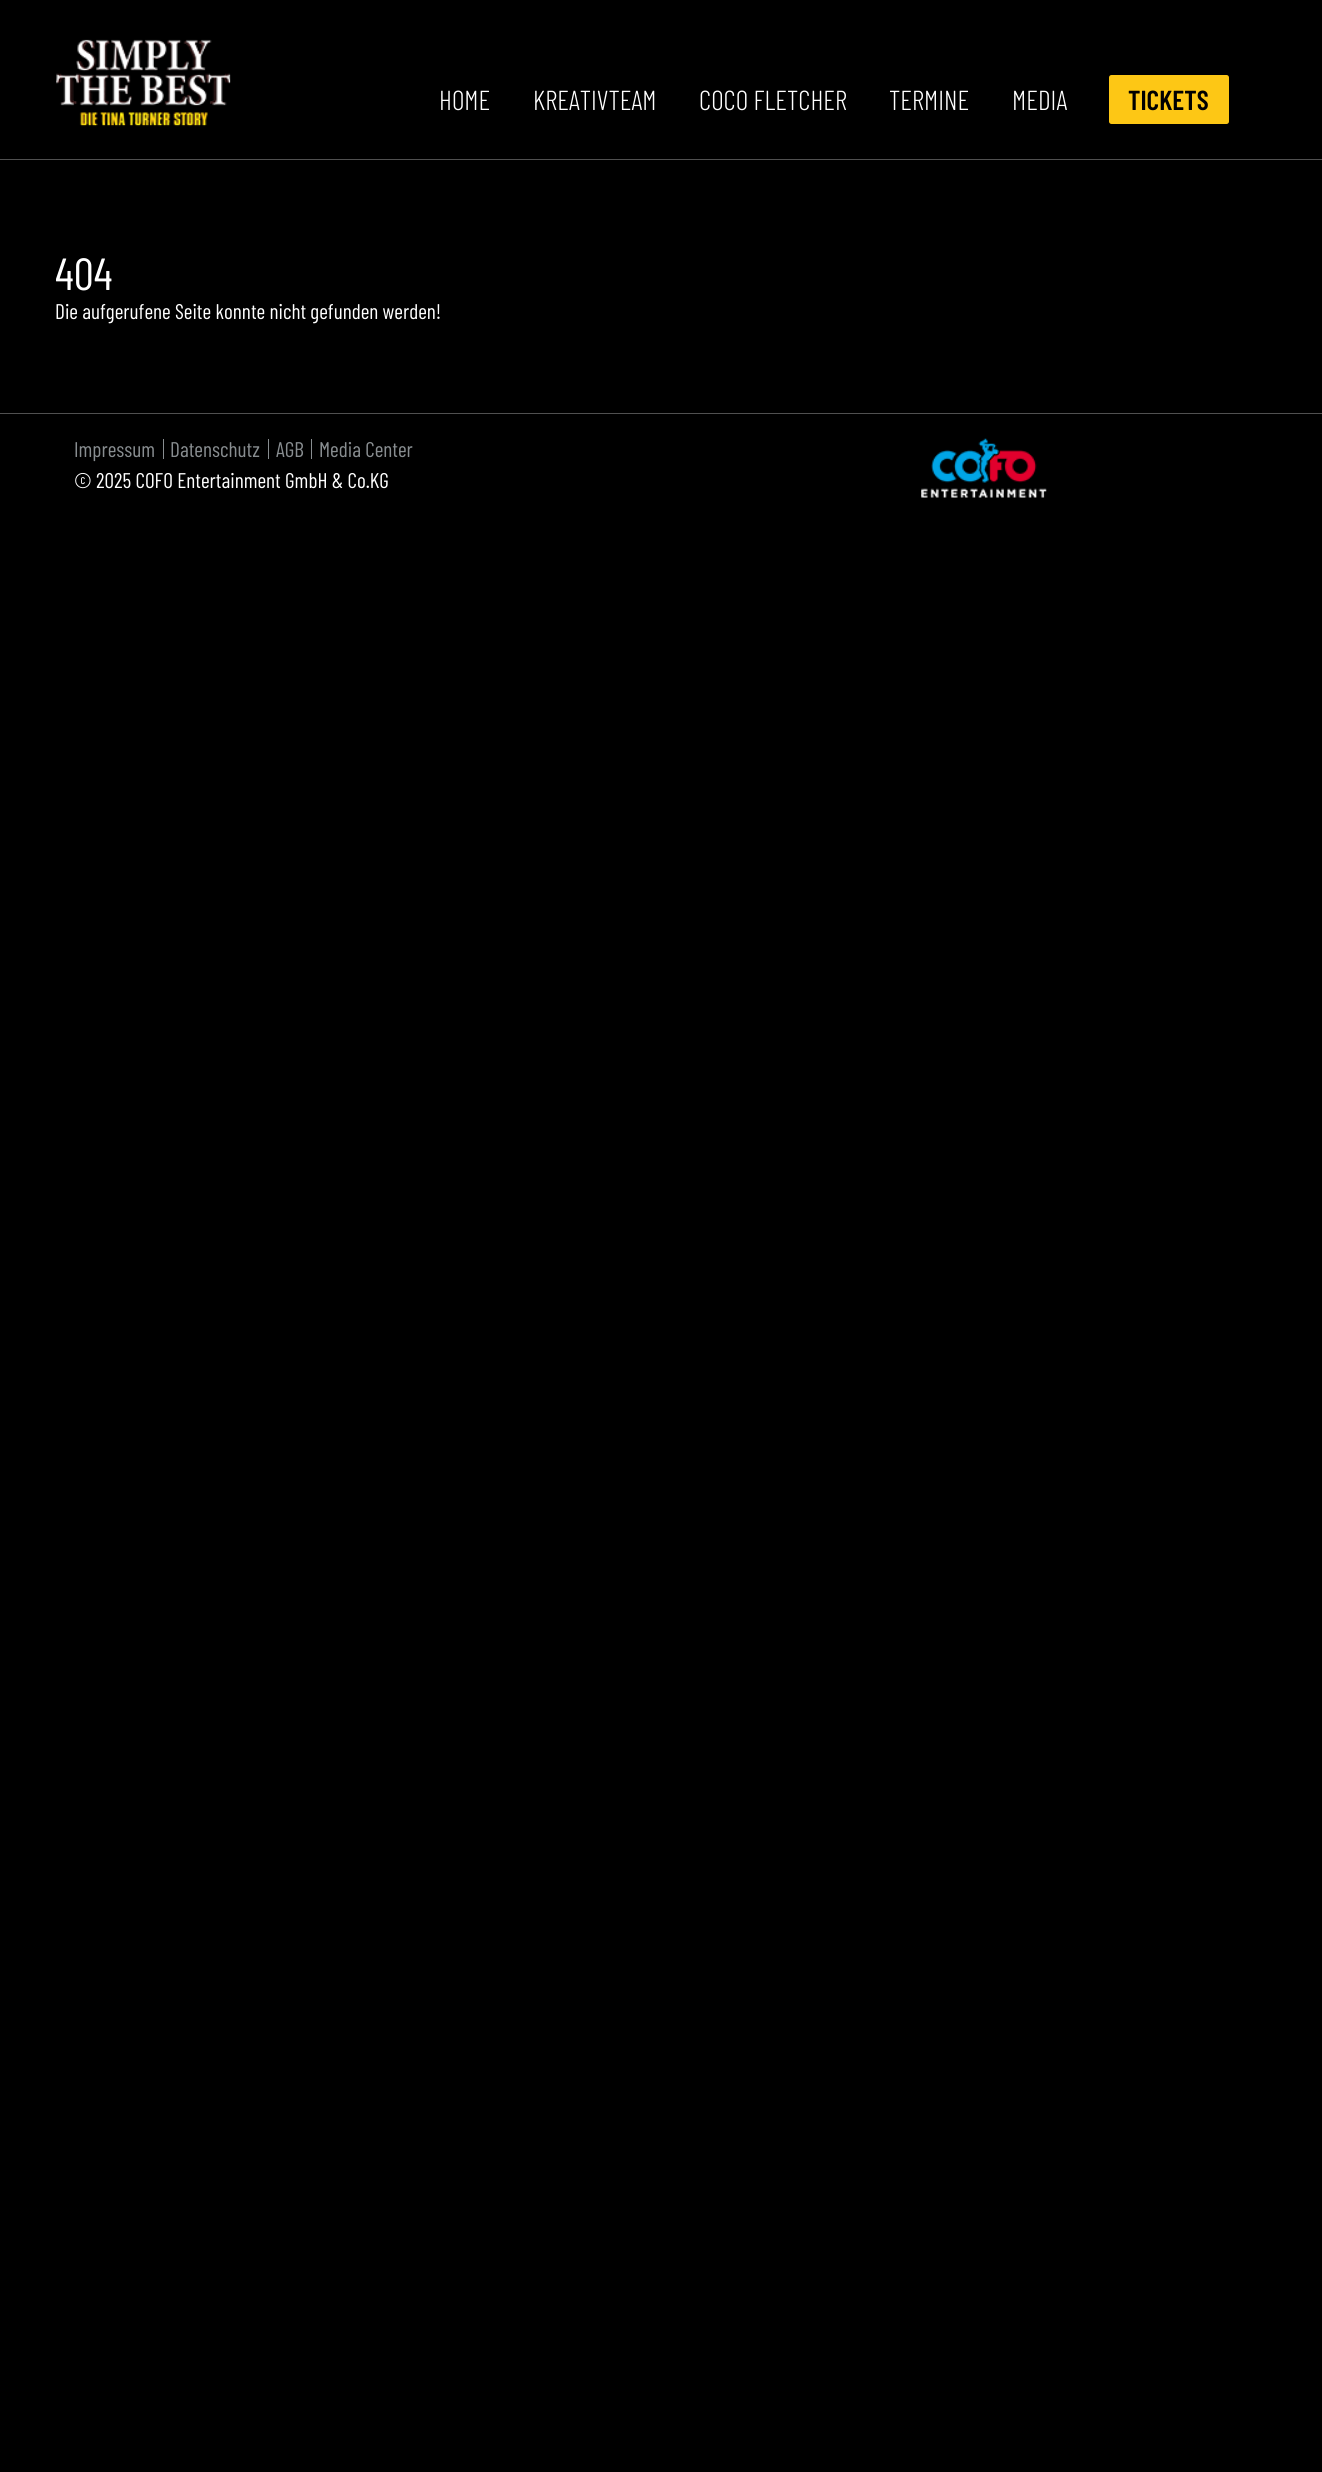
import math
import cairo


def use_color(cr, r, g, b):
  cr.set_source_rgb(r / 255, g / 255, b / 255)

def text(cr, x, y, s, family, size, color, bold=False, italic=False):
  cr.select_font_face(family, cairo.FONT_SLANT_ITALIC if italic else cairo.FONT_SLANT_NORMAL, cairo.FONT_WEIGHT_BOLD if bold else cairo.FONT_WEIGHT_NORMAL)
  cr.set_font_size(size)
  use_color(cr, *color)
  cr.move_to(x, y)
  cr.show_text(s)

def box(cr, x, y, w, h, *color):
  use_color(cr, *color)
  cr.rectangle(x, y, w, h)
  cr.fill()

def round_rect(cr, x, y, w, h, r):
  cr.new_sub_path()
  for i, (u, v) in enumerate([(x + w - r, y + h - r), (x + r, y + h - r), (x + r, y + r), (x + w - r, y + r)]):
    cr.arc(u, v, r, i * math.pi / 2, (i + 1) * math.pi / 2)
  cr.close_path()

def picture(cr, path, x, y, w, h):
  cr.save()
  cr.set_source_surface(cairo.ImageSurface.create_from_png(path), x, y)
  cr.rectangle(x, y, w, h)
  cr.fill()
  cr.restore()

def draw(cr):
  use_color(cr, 0, 0, 0)
  cr.paint()
  box(cr, 0, 159, 1322, 1, 80, 80, 80)
  picture(cr, "img_01.png", 56, 39, 175, 88)
  use_color(cr, 253, 199, 21)
  round_rect(cr, 1109, 75, 120, 49, 2.5)
  cr.fill()
  box(cr, 0, 413, 1322, 1, 80, 80, 80)
  box(cr, 163, 439, 1, 20, 136, 141, 144)
  box(cr, 268, 439, 1, 20, 136, 141, 144)
  box(cr, 311, 439, 1, 20, 136, 141, 144)
  picture(cr, "img_02.png", 921, 438, 126, 60)
  text(cr, 439, 110, "HOME", "Barlow Condensed Light", 27.5, (255, 255, 255))
  text(cr, 533, 110, "KREATIVTEAM", "Barlow Condensed Light", 27.5, (255, 255, 255))
  text(cr, 699, 110, "COCO FLETCHER", "Barlow Condensed Light", 27.5, (255, 255, 255))
  text(cr, 889, 110, "TERMINE", "Barlow Condensed Light", 27.5, (255, 255, 255))
  text(cr, 1012, 110, "MEDIA", "Barlow Condensed Light", 27.5, (255, 255, 255))
  text(cr, 1128, 110, "TICKETS", "Barlow Condensed SemiBold", 27.5, (0, 0, 0))
  text(cr, 55, 290, "404", "Barlow Condensed", 45, (255, 255, 255))
  text(cr, 55, 319, "Die aufgerufene Seite konnte nicht gefunden werden!", "Barlow Condensed", 21.25, (255, 255, 255))
  text(cr, 74, 457, "Impressum", "Barlow Condensed", 21.25, (136, 141, 144))
  text(cr, 170, 457, "Datenschutz", "Barlow Condensed", 21.25, (136, 141, 144))
  text(cr, 276, 457, "AGB", "Barlow Condensed", 21.25, (136, 141, 144))
  text(cr, 319, 457, "Media Center", "Barlow Condensed", 21.25, (136, 141, 144))
  text(cr, 74, 488, "© 2025 COFO Entertainment GmbH & Co.KG", "Barlow Condensed", 21.25, (255, 255, 255))


surface = cairo.ImageSurface(cairo.FORMAT_RGB24, 1322, 2472)
cr = cairo.Context(surface)
options = cairo.FontOptions()
options.set_hint_metrics(cairo.HINT_METRICS_OFF)
options.set_hint_style(cairo.HINT_STYLE_NONE)
cr.set_font_options(options)
cr.set_miter_limit(4)
draw(cr)
surface.write_to_png("out.png")
